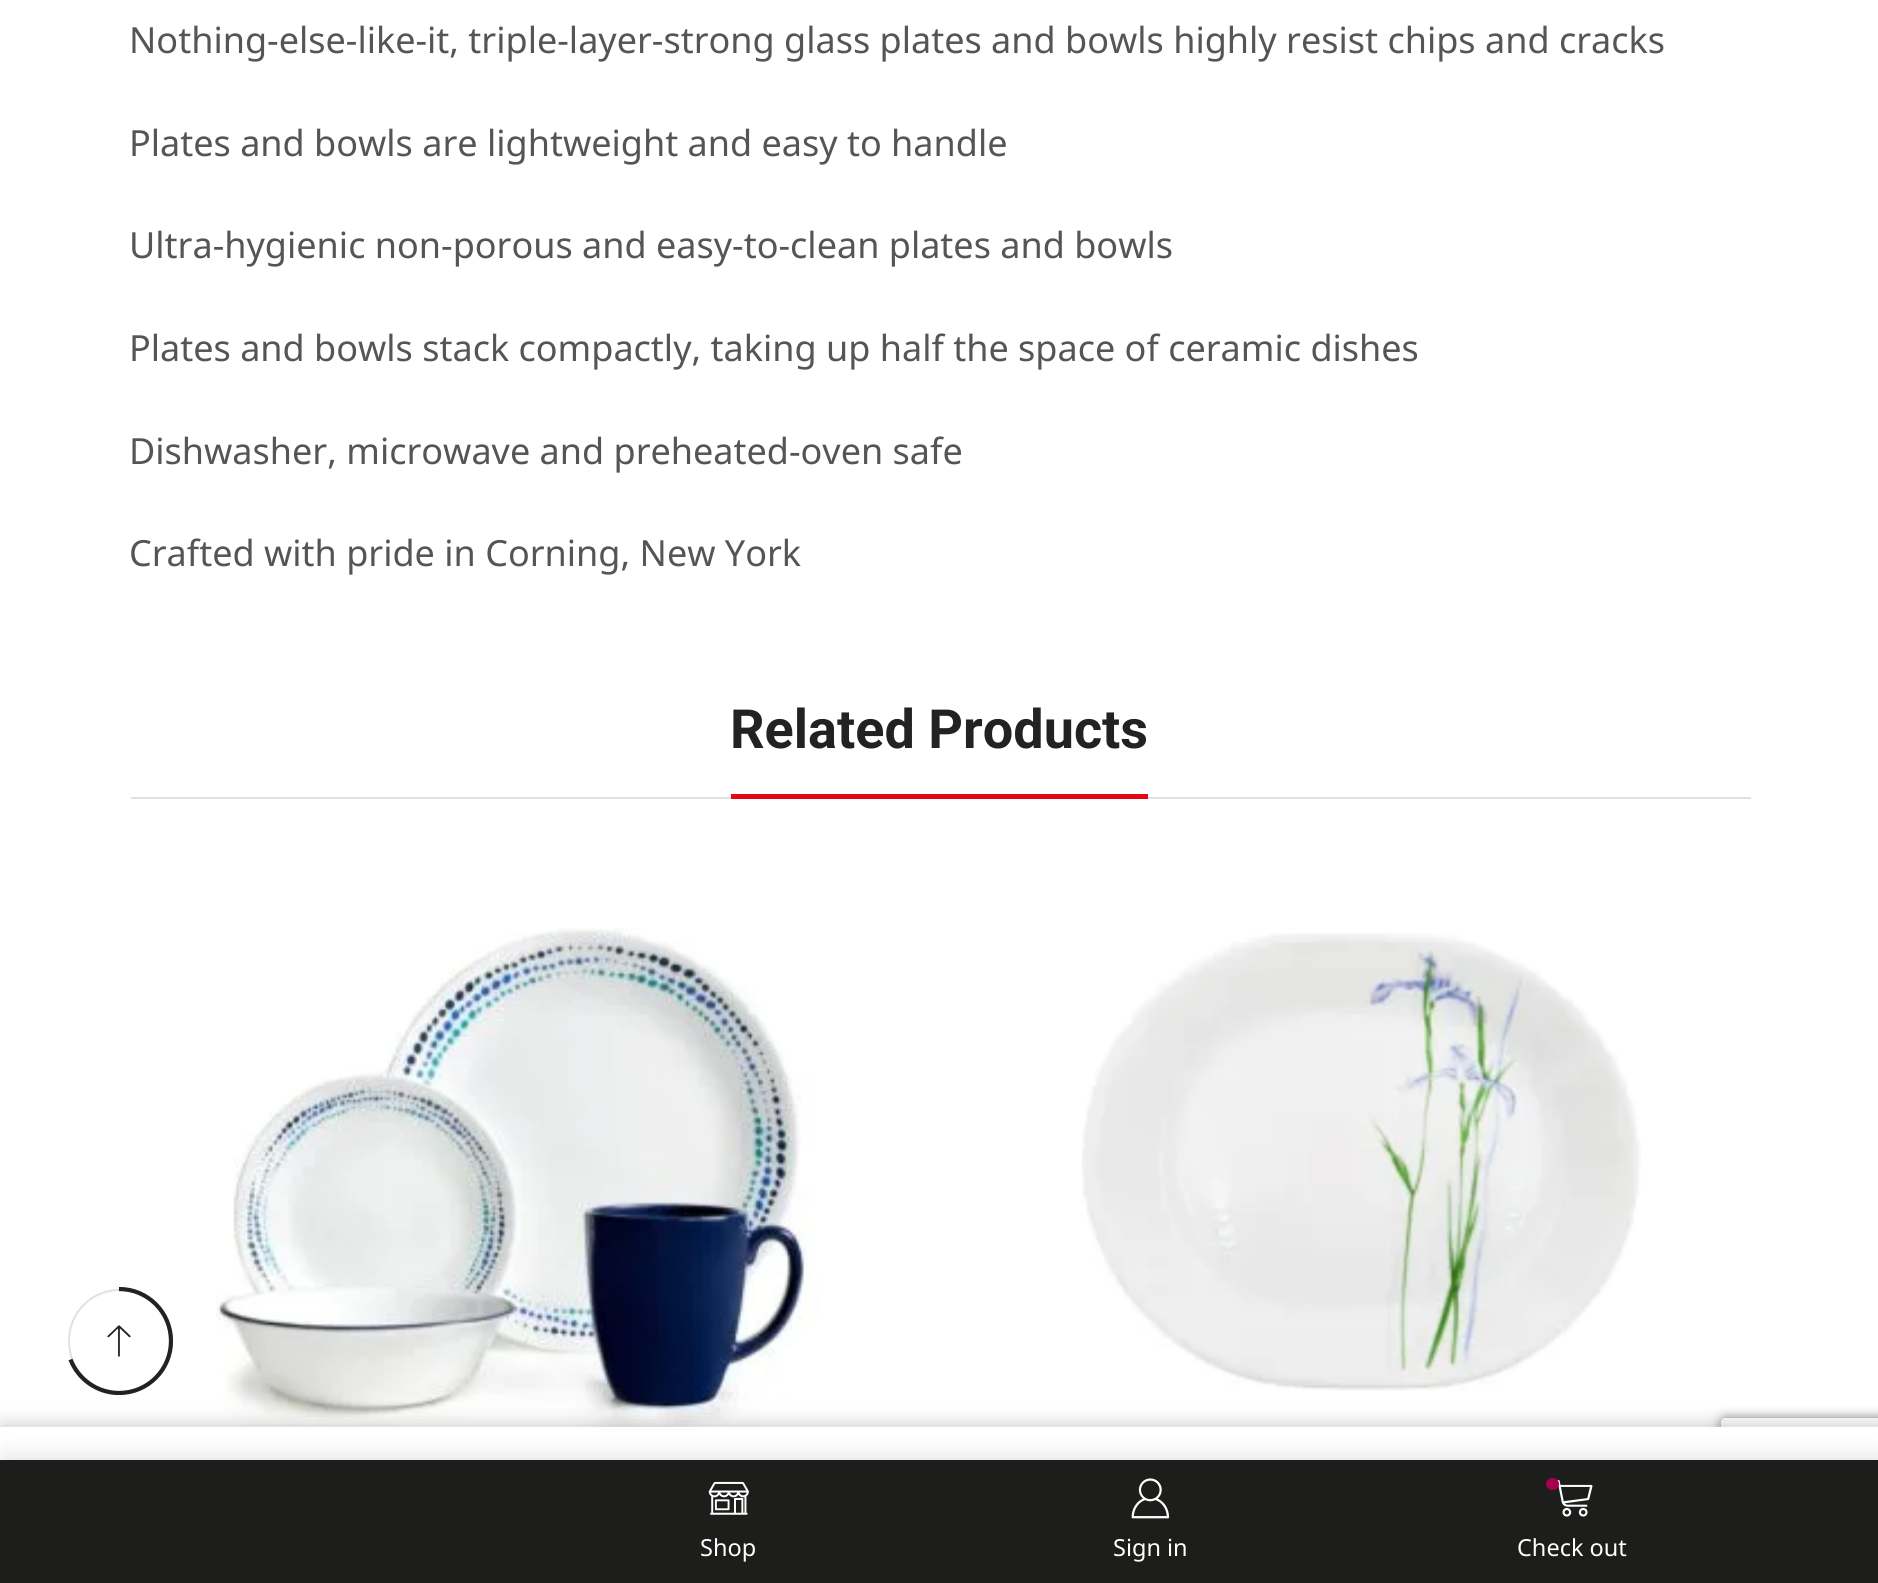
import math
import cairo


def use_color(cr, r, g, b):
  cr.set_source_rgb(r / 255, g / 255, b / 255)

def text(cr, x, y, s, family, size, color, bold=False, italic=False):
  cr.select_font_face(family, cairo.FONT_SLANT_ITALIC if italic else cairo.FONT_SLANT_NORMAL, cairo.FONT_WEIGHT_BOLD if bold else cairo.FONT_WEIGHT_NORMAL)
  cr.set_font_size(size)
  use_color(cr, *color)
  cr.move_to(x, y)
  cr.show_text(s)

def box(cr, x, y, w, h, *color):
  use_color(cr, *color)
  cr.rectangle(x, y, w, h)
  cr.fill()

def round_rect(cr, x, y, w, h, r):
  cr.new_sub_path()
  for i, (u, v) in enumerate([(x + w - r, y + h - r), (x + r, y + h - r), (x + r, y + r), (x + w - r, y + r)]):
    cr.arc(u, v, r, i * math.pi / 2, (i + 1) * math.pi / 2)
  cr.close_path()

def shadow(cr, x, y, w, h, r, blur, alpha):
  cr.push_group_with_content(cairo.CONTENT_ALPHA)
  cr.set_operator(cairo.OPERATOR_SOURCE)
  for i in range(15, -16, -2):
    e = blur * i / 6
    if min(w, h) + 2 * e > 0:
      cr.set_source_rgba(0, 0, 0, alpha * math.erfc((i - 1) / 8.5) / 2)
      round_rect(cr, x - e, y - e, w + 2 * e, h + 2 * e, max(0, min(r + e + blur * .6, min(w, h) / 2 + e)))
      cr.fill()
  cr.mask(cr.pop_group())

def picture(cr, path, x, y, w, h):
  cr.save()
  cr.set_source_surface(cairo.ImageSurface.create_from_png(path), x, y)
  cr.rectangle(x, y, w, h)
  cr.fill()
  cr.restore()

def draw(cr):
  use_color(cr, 255, 255, 255)
  cr.paint()
  box(cr, 131, 797, 1620, 2, 225, 225, 225)
  box(cr, 731, 794, 417, 5, 227, 6, 19)
  picture(cr, "img_01.png", 216, 928, 603, 499)
  picture(cr, "img_02.png", 1081, 933, 560, 458)
  round_rect(cr, 69, 1290, 101, 102, 50.5)
  use_color(cr, 225, 225, 225)
  cr.stroke()
  cr.save()
  cr.rectangle(65, 1287, 108, 108)
  cr.clip()
  cr.new_path()
  cr.move_to(119, 1289)
  cr.curve_to(148, 1289, 171, 1312.5, 171, 1341)
  cr.curve_to(171, 1369.5, 148, 1393, 119, 1393)
  cr.curve_to(97, 1393, 78, 1379, 70.5, 1359.5)
  use_color(cr, 34, 34, 34)
  cr.set_line_width(4.2)
  cr.stroke()
  cr.restore()
  picture(cr, "img_03.png", 107, 1325, 24, 32)
  use_color(cr, 0, 0, 0)
  shadow(cr, 2, 1429, 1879, 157, 0, 11, 0.3)
  cr.save()
  cr.set_fill_rule(cairo.FILL_RULE_EVEN_ODD)
  cr.new_path()
  cr.move_to(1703, 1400)
  cr.line_to(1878, 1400)
  cr.line_to(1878, 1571)
  cr.line_to(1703, 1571)
  cr.close_path()
  cr.move_to(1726, 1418)
  cr.line_to(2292, 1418)
  cr.curve_to(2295, 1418, 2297, 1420, 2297, 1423)
  cr.line_to(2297, 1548)
  cr.curve_to(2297, 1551, 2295, 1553, 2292, 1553)
  cr.line_to(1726, 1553)
  cr.curve_to(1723, 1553, 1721, 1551, 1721, 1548)
  cr.line_to(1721, 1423)
  cr.curve_to(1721, 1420, 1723, 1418, 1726, 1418)
  cr.close_path()
  cr.clip()
  use_color(cr, 128, 128, 128)
  shadow(cr, 1721, 1418, 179, 135, 5, 5.5, 1)
  cr.restore()
  box(cr, 0, 1427, 1878, 33, 255, 255, 255)
  use_color(cr, 0, 0, 0)
  shadow(cr, 5, 1460, 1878, 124, 0, 13.5, 0.15)
  box(cr, 0, 1460, 1878, 123, 29, 29, 27)
  picture(cr, "img_04.png", 708, 1481, 41, 34)
  picture(cr, "img_05.png", 1131, 1478, 39, 41)
  picture(cr, "img_06.png", 1557, 1480, 36, 37)
  use_color(cr, 164, 0, 79)
  round_rect(cr, 1546, 1478, 13, 12, 6)
  cr.fill()
  text(cr, 129, 53, "Nothing-else-like-it, triple-layer-strong glass plates and bowls highly resist chips and cracks", "Noto Sans", 36, (85, 85, 85))
  text(cr, 129, 156, "Plates and bowls are lightweight and easy to handle", "Noto Sans", 36, (85, 85, 85))
  text(cr, 129, 258, "Ultra-hygienic non-porous and easy-to-clean plates and bowls", "Noto Sans", 36, (85, 85, 85))
  text(cr, 129, 361, "Plates and bowls stack compactly, taking up half the space of ceramic dishes", "Noto Sans", 36, (85, 85, 85))
  text(cr, 129, 464, "Dishwasher, microwave and preheated-oven safe", "Noto Sans", 36, (85, 85, 85))
  text(cr, 129, 566, "Crafted with pride in Corning, New York", "Noto Sans", 36, (85, 85, 85))
  text(cr, 730, 748, "Related Products", "Roboto", 54, (34, 34, 34), bold=True)
  text(cr, 700, 1556, "Shop", "Noto Sans", 23.5, (255, 255, 255))
  text(cr, 1113, 1556, "Sign in", "Noto Sans", 23.5, (255, 255, 255))
  text(cr, 1517, 1556, "Check out", "Noto Sans", 23.5, (255, 255, 255))


surface = cairo.ImageSurface(cairo.FORMAT_RGB24, 1878, 1583)
cr = cairo.Context(surface)
options = cairo.FontOptions()
options.set_hint_metrics(cairo.HINT_METRICS_OFF)
options.set_hint_style(cairo.HINT_STYLE_NONE)
cr.set_font_options(options)
cr.set_miter_limit(4)
draw(cr)
surface.write_to_png("out.png")
